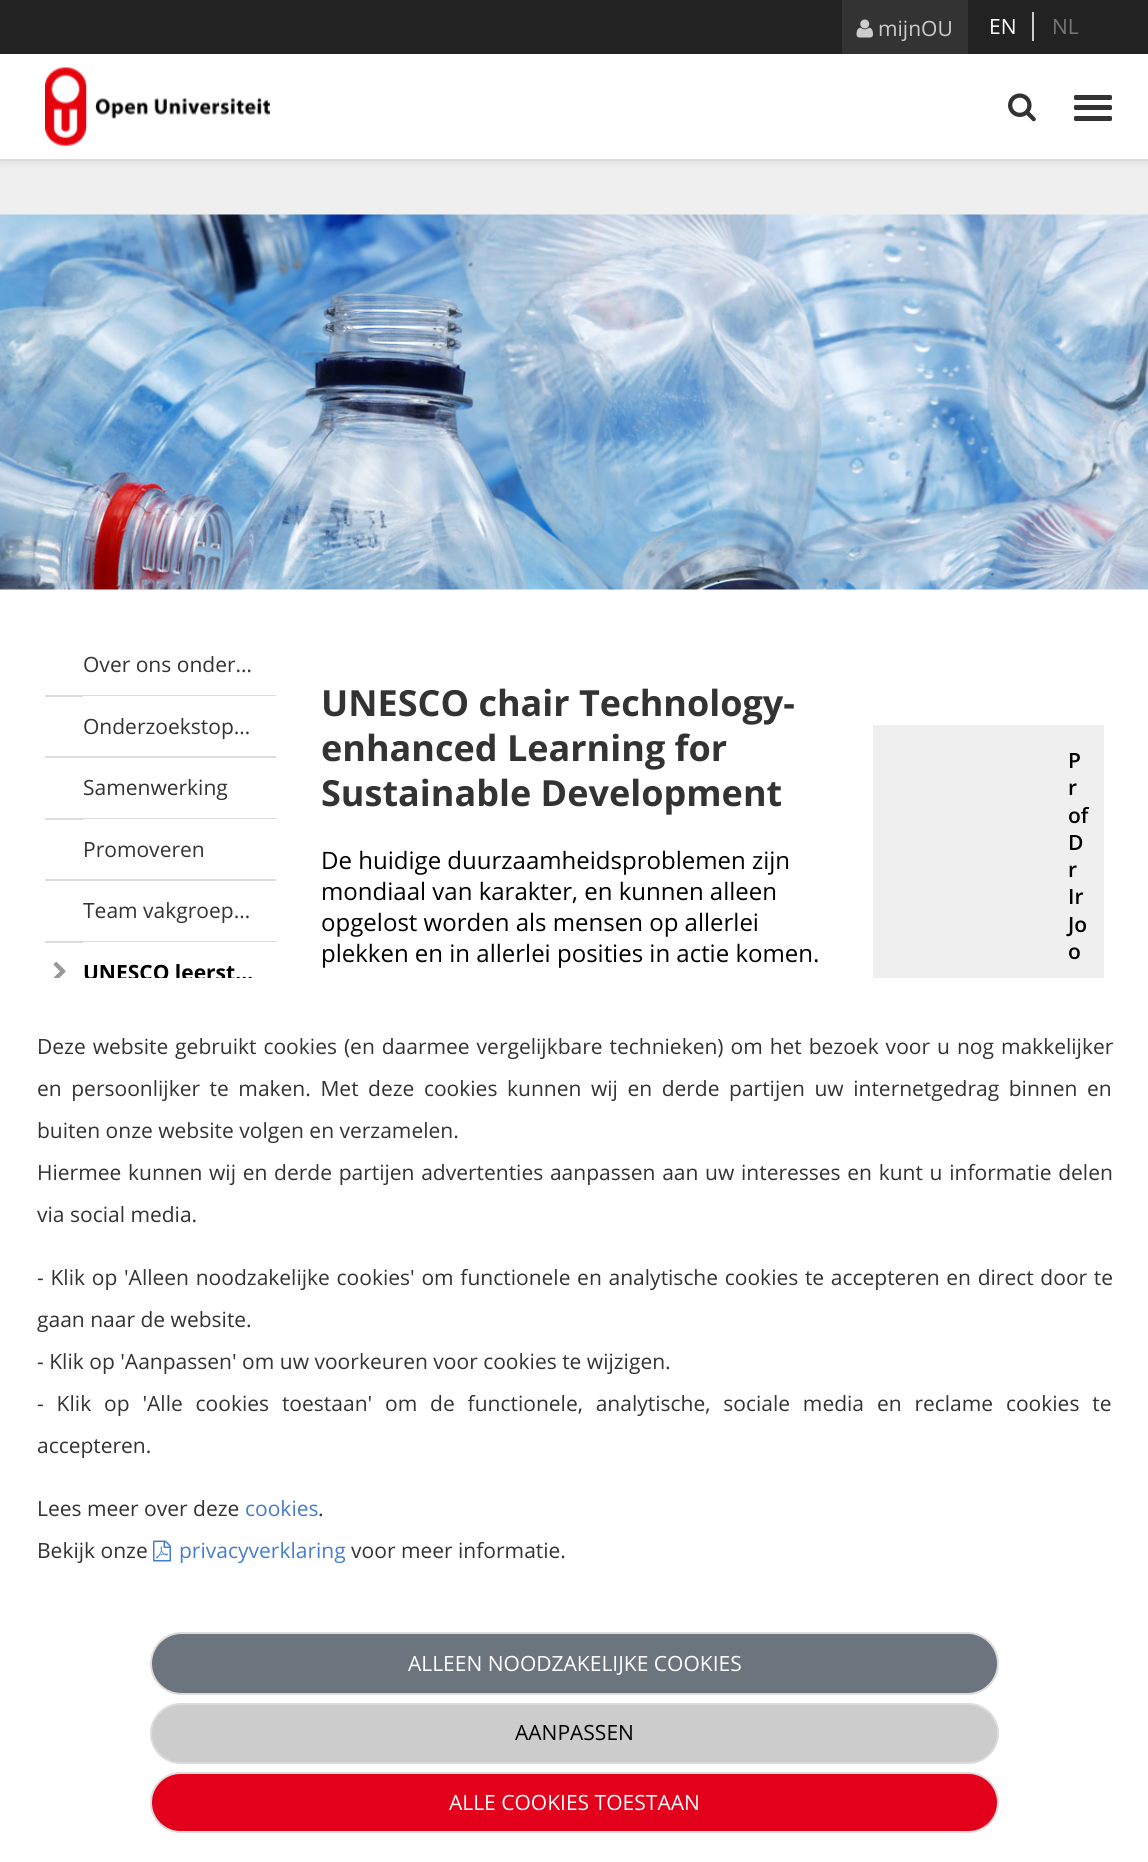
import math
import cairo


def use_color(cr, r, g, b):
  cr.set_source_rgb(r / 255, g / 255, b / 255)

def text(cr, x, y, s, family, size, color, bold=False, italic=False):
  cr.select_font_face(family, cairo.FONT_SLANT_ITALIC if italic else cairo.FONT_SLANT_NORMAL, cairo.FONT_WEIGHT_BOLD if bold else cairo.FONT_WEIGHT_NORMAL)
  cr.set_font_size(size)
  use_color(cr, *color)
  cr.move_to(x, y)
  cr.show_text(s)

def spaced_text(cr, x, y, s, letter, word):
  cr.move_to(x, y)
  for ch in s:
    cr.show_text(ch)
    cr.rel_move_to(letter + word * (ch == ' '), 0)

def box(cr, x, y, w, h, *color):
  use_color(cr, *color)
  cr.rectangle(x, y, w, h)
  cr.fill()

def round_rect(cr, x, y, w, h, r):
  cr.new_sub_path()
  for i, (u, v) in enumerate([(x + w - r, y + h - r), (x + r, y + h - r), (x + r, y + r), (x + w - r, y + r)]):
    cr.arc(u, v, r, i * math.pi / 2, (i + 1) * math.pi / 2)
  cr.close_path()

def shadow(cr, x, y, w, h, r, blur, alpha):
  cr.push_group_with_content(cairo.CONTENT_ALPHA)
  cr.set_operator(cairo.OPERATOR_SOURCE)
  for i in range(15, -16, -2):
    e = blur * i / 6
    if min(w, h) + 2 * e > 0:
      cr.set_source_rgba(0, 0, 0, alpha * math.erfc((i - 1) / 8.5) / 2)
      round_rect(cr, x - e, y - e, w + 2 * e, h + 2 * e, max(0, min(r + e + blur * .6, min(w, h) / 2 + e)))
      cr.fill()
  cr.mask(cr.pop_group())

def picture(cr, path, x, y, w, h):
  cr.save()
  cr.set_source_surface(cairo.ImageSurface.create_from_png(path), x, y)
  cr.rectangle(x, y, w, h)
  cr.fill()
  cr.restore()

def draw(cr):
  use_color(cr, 239, 239, 239)
  cr.paint()
  use_color(cr, 0, 0, 0)
  shadow(cr, 0, 2, 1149, 160, 0, 4, 0.1)
  box(cr, 0, 159, 1148, 2, 220, 220, 220)
  box(cr, 0, 0, 1148, 54, 34, 34, 34)
  box(cr, 842, 0, 126, 54, 51, 51, 51)
  picture(cr, "img_01.png", 856, 19, 17, 19)
  box(cr, 1032, 12, 2, 29, 204, 204, 204)
  box(cr, 0, 54, 1148, 105, 255, 255, 255)
  picture(cr, "img_02.png", 45, 67, 225, 79)
  picture(cr, "img_03.png", 1008, 93, 28, 29)
  use_color(cr, 51, 51, 51)
  round_rect(cr, 1074, 95, 38, 5, 1.5)
  cr.fill()
  round_rect(cr, 1074, 105, 38, 5, 1.5)
  cr.fill()
  round_rect(cr, 1074, 116, 38, 5, 1.5)
  cr.fill()
  box(cr, 0, 589, 1148, 389, 255, 255, 255)
  picture(cr, "img_04.png", 0, 214, 1148, 376)
  box(cr, 45, 695, 231, 2, 220, 220, 220)
  box(cr, 83, 696, 193, 1, 255, 255, 255)
  box(cr, 45, 756, 231, 2, 220, 220, 220)
  box(cr, 45, 818, 231, 2, 220, 220, 220)
  box(cr, 83, 819, 193, 1, 255, 255, 255)
  box(cr, 45, 879, 231, 2, 220, 220, 220)
  box(cr, 45, 941, 231, 2, 220, 220, 220)
  picture(cr, "img_05.png", 53, 961, 13, 17)
  box(cr, 83, 942, 193, 1, 255, 255, 255)
  box(cr, 873, 725, 231, 253, 239, 239, 239)
  text(cr, 878, 36, "mijnOU", "Open Sans", 21, (204, 204, 204))
  text(cr, 989, 34, "EN", "Open Sans", 21, (255, 255, 255))
  text(cr, 1052, 34, "NL", "Open Sans", 21, (119, 119, 119))
  text(cr, 83, 672, "Over ons onder…", "Open Sans", 21, (51, 51, 51))
  text(cr, 83, 734, "Onderzoekstop…", "Open Sans", 21, (51, 51, 51))
  text(cr, 83, 795, "Samenwerking", "Open Sans", 21, (51, 51, 51))
  text(cr, 83, 857, "Promoveren", "Open Sans", 21, (51, 51, 51))
  text(cr, 83, 918, "Team vakgroep…", "Open Sans", 21, (51, 51, 51))
  text(cr, 83, 980, "UNESCO leerst…", "Open Sans", 21, (0, 0, 0), bold=True)
  text(cr, 321, 716, "UNESCO chair Technology-", "Open Sans", 36, (51, 51, 51), bold=True)
  text(cr, 321, 761, "enhanced Learning for", "Open Sans", 36, (51, 51, 51), bold=True)
  text(cr, 321, 806, "Sustainable Development", "Open Sans", 36, (51, 51, 51), bold=True)
  text(cr, 321, 869, "De huidige duurzaamheidsproblemen zijn", "Open Sans", 24, (0, 0, 0))
  text(cr, 321, 900, "mondiaal van karakter, en kunnen alleen", "Open Sans", 24, (0, 0, 0))
  text(cr, 321, 931, "opgelost worden als mensen op allerlei", "Open Sans", 24, (0, 0, 0))
  text(cr, 321, 962, "plekken en in allerlei posities in actie komen.", "Open Sans", 24, (0, 0, 0))
  text(cr, 1068, 768, "P", "Open Sans SemiBold", 21, (0, 0, 0))
  text(cr, 1068, 795, "r", "Open Sans SemiBold", 21, (0, 0, 0))
  text(cr, 1068, 823, "of", "Open Sans SemiBold", 21, (0, 0, 0))
  text(cr, 1068, 850, "D", "Open Sans SemiBold", 21, (0, 0, 0))
  text(cr, 1068, 877, "r", "Open Sans SemiBold", 21, (0, 0, 0))
  text(cr, 1068, 904, "Ir", "Open Sans SemiBold", 21, (0, 0, 0))
  text(cr, 1068, 932, "Jo", "Open Sans SemiBold", 21, (0, 0, 0))
  text(cr, 1068, 959, "o", "Open Sans SemiBold", 21, (0, 0, 0))
  box(cr, 0, 978, 1148, 884, 255, 255, 255)
  cr.select_font_face("Open Sans")
  use_color(cr, 51, 51, 51)
  spaced_text(cr, 37, 1054, "Deze website gebruikt cookies (en daarmee vergelijkbare technieken) om het bezoek voor u nog makkelijker", 0, 1.5)
  spaced_text(cr, 37, 1096, "en persoonlijker te maken. Met deze cookies kunnen wij en derde partijen uw internetgedrag binnen en", 0, 4.1)
  text(cr, 37, 1138, "buiten onze website volgen en verzamelen.", "Open Sans", 21, (51, 51, 51))
  spaced_text(cr, 37, 1180, "Hiermee kunnen wij en derde partijen advertenties aanpassen aan uw interesses en kunt u informatie delen", 0, 1.25)
  text(cr, 37, 1222, "via social media.", "Open Sans", 21, (51, 51, 51))
  spaced_text(cr, 37, 1285, "- Klik op 'Alleen noodzakelijke cookies' om functionele en analytische cookies te accepteren en direct door te", 0, 1.25)
  text(cr, 37, 1327, "gaan naar de website.", "Open Sans", 21, (51, 51, 51))
  text(cr, 37, 1369, "- Klik op 'Aanpassen' om uw voorkeuren voor cookies te wijzigen.", "Open Sans", 21, (51, 51, 51))
  spaced_text(cr, 37, 1411, "- Klik op 'Alle cookies toestaan' om de functionele, analytische, sociale media en reclame cookies te", 0, 7.4)
  text(cr, 37, 1453, "accepteren.", "Open Sans", 21, (51, 51, 51))
  text(cr, 37, 1516, "Lees meer over deze", "Open Sans", 21, (51, 51, 51))
  text(cr, 245, 1516, "cookies", "Open Sans", 21, (71, 125, 205))
  text(cr, 318, 1516, ".", "Open Sans", 21, (51, 51, 51))
  text(cr, 37, 1558, "Bekijk onze", "Open Sans", 21, (51, 51, 51))
  picture(cr, "img_06.png", 153, 1540, 18, 22)
  text(cr, 179, 1558, "privacyverklaring", "Open Sans", 21, (71, 125, 205))
  text(cr, 351, 1558, "voor meer informatie.", "Open Sans", 21, (51, 51, 51))
  use_color(cr, 108, 117, 125)
  round_rect(cr, 151, 1633, 847, 61, 30.5)
  cr.fill_preserve()
  use_color(cr, 220, 220, 220)
  cr.stroke()
  text(cr, 408, 1671, "ALLEEN NOODZAKELIJKE COOKIES", "Open Sans", 21, (255, 255, 255))
  use_color(cr, 204, 204, 204)
  round_rect(cr, 151, 1704, 847, 59, 29.5)
  cr.fill_preserve()
  use_color(cr, 220, 220, 220)
  cr.stroke()
  text(cr, 515, 1740, "AANPASSEN", "Open Sans", 21, (0, 0, 0))
  use_color(cr, 226, 0, 26)
  round_rect(cr, 151, 1773, 847, 59, 29.5)
  cr.fill_preserve()
  use_color(cr, 220, 220, 220)
  cr.stroke()
  text(cr, 449, 1810, "ALLE COOKIES TOESTAAN", "Open Sans", 21, (255, 255, 255))


surface = cairo.ImageSurface(cairo.FORMAT_RGB24, 1148, 1862)
cr = cairo.Context(surface)
options = cairo.FontOptions()
options.set_hint_metrics(cairo.HINT_METRICS_OFF)
options.set_hint_style(cairo.HINT_STYLE_NONE)
cr.set_font_options(options)
cr.set_miter_limit(4)
draw(cr)
surface.write_to_png("out.png")
